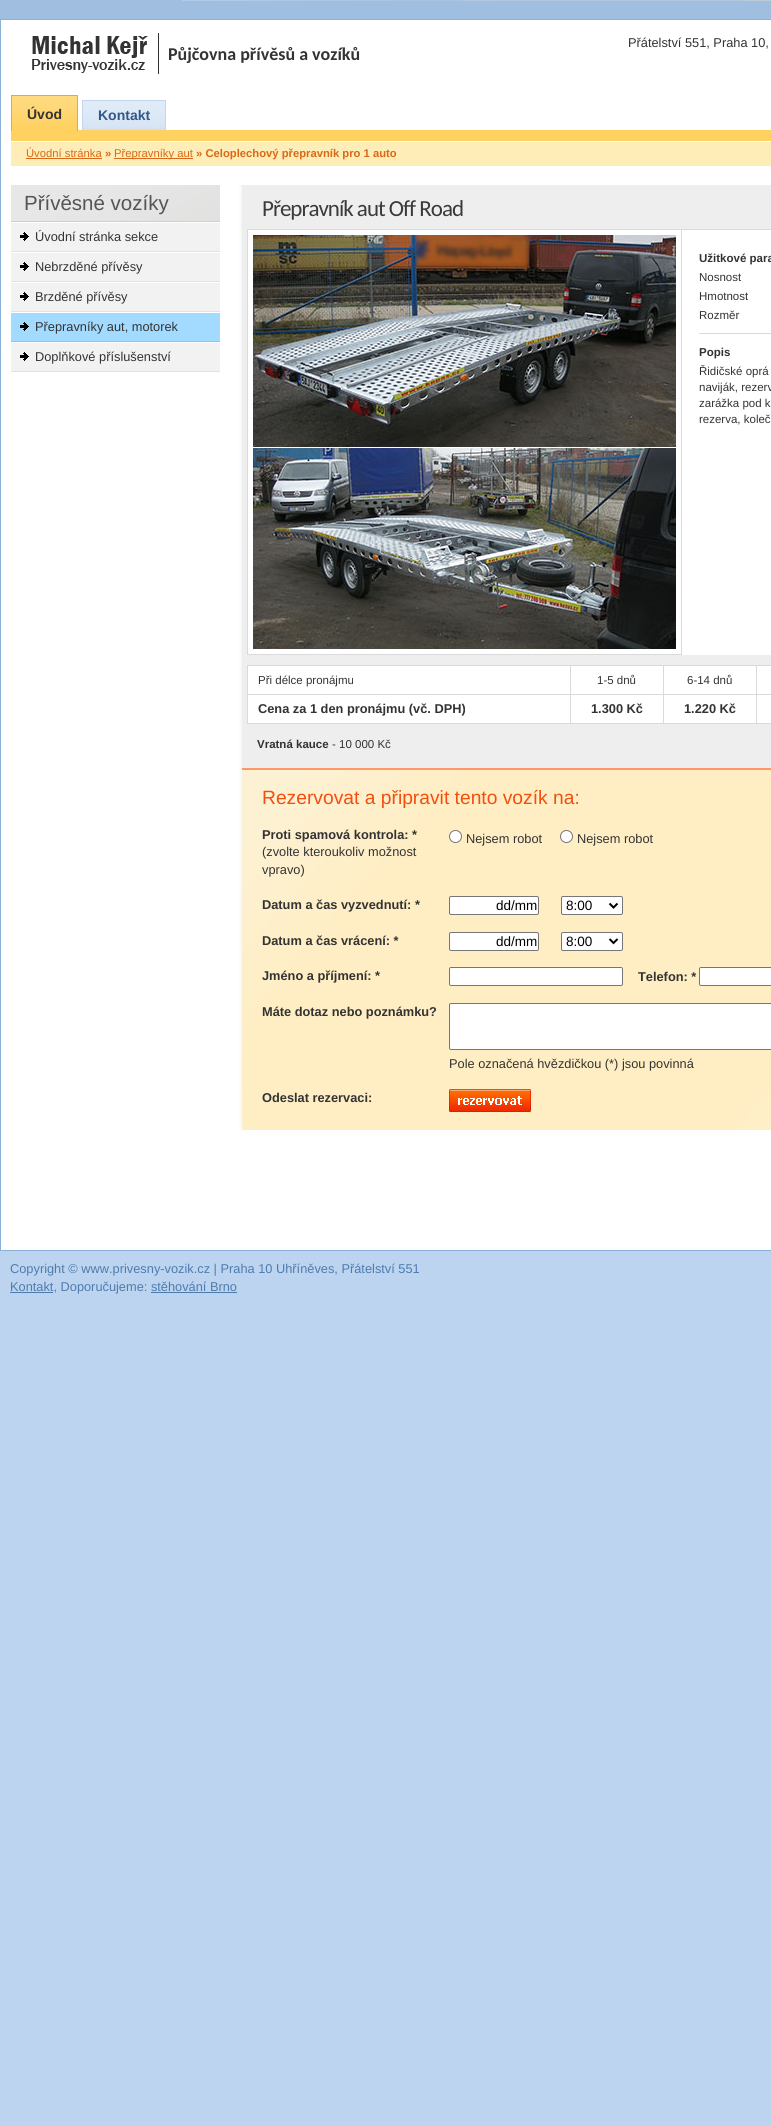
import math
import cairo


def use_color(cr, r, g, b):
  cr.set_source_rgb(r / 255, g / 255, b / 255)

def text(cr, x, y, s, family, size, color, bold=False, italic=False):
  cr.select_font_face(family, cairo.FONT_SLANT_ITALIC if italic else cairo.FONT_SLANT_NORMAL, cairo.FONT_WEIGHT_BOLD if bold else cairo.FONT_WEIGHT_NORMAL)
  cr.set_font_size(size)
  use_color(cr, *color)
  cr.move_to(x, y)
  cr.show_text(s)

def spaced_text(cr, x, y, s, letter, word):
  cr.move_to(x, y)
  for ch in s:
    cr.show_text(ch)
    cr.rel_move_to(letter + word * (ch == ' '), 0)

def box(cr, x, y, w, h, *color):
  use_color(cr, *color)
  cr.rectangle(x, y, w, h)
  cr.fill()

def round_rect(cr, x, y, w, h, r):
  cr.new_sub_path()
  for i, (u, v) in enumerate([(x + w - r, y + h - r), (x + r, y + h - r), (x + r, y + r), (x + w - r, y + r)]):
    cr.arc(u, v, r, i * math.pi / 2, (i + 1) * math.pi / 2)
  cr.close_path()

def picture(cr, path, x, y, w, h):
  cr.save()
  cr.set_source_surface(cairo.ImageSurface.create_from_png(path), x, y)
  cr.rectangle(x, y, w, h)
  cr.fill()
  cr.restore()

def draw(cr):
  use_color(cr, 188, 212, 239)
  cr.paint()
  box(cr, 1, 165, 770, 1085, 255, 255, 255)
  box(cr, 0, 165, 1, 1085, 140, 177, 217)
  picture(cr, "img_02.png", 0, 0, 771, 165)
  picture(cr, "img_01.png", 32, 33, 127, 41)
  box(cr, 11, 130, 760, 11, 255, 209, 97)
  box(cr, 12, 125, 65, 5, 255, 209, 97)
  picture(cr, "img_03.png", 12, 96, 65, 29)
  box(cr, 11, 95, 67, 1, 236, 174, 24)
  box(cr, 77, 95, 1, 36, 236, 174, 24)
  box(cr, 11, 95, 1, 36, 236, 174, 24)
  picture(cr, "img_04.png", 83, 101, 82, 29)
  box(cr, 82, 100, 84, 1, 195, 214, 237)
  box(cr, 165, 100, 1, 30, 195, 214, 237)
  box(cr, 82, 100, 1, 30, 195, 214, 237)
  box(cr, 11, 142, 760, 24, 255, 237, 183)
  box(cr, 26, 158, 76, 1, 216, 105, 23)
  box(cr, 114, 158, 79, 1, 216, 105, 23)
  picture(cr, "img_05.png", 11, 185, 209, 36)
  box(cr, 11, 221, 209, 1, 207, 206, 205)
  box(cr, 11, 251, 209, 1, 229, 225, 225)
  box(cr, 11, 223, 209, 28, 242, 242, 242)
  picture(cr, "img_06.png", 20, 232, 9, 9)
  box(cr, 11, 281, 209, 1, 229, 225, 225)
  box(cr, 11, 253, 209, 28, 242, 242, 242)
  picture(cr, "img_06.png", 20, 262, 9, 9)
  box(cr, 11, 311, 209, 1, 229, 225, 225)
  box(cr, 11, 283, 209, 28, 242, 242, 242)
  picture(cr, "img_06.png", 20, 292, 9, 9)
  box(cr, 11, 341, 209, 1, 130, 199, 242)
  box(cr, 11, 313, 209, 28, 162, 219, 255)
  picture(cr, "img_07.png", 20, 322, 9, 9)
  box(cr, 11, 371, 209, 1, 229, 225, 225)
  box(cr, 11, 343, 209, 28, 242, 242, 242)
  picture(cr, "img_06.png", 20, 352, 9, 9)
  box(cr, 242, 185, 529, 583, 238, 238, 238)
  picture(cr, "img_08.png", 237, 185, 5, 945)
  box(cr, 248, 230, 523, 425, 255, 255, 255)
  box(cr, 247, 229, 524, 1, 218, 218, 218)
  box(cr, 681, 230, 1, 425, 218, 218, 218)
  box(cr, 247, 654, 435, 1, 218, 218, 218)
  box(cr, 247, 230, 1, 425, 218, 218, 218)
  picture(cr, "img_09.png", 253, 235, 423, 414)
  box(cr, 699, 333, 72, 1, 218, 218, 218)
  box(cr, 247, 723, 524, 1, 218, 218, 218)
  box(cr, 248, 666, 322, 28, 255, 255, 255)
  box(cr, 247, 665, 524, 1, 218, 218, 218)
  box(cr, 247, 665, 1, 29, 218, 218, 218)
  box(cr, 571, 666, 92, 28, 255, 255, 255)
  box(cr, 570, 665, 1, 29, 218, 218, 218)
  box(cr, 664, 666, 92, 28, 255, 255, 255)
  box(cr, 663, 665, 1, 29, 218, 218, 218)
  box(cr, 757, 666, 14, 28, 255, 255, 255)
  box(cr, 756, 665, 1, 29, 218, 218, 218)
  box(cr, 248, 695, 322, 28, 255, 255, 255)
  box(cr, 247, 694, 524, 1, 218, 218, 218)
  box(cr, 247, 694, 1, 29, 218, 218, 218)
  box(cr, 571, 695, 92, 28, 255, 255, 255)
  box(cr, 570, 694, 1, 29, 218, 218, 218)
  box(cr, 664, 695, 92, 28, 255, 255, 255)
  box(cr, 663, 694, 1, 29, 218, 218, 218)
  box(cr, 757, 695, 14, 28, 255, 255, 255)
  box(cr, 756, 694, 1, 29, 218, 218, 218)
  picture(cr, "img_10.png", 242, 770, 529, 360)
  box(cr, 242, 768, 529, 2, 255, 151, 102)
  use_color(cr, 255, 255, 255)
  cr.arc(455.5, 836.5, 6, 0, 2 * math.pi)
  cr.fill_preserve()
  use_color(cr, 118, 118, 118)
  cr.set_line_width(1)
  cr.stroke()
  use_color(cr, 255, 255, 255)
  cr.arc(566.5, 836.5, 6, 0, 2 * math.pi)
  cr.fill_preserve()
  use_color(cr, 118, 118, 118)
  cr.stroke()
  use_color(cr, 255, 255, 255)
  round_rect(cr, 449.5, 896.5, 89, 18, 1.5)
  cr.fill_preserve()
  use_color(cr, 118, 118, 118)
  cr.stroke()
  use_color(cr, 255, 255, 255)
  round_rect(cr, 561.5, 896.5, 61, 18, 1.5)
  cr.fill_preserve()
  use_color(cr, 118, 118, 118)
  cr.stroke()
  cr.new_path()
  cr.move_to(609.5, 903.5)
  cr.line_to(613.5, 907.5)
  cr.line_to(617.5, 903.5)
  use_color(cr, 0, 0, 0)
  cr.set_line_width(2)
  cr.stroke()
  use_color(cr, 255, 255, 255)
  round_rect(cr, 449.5, 932.5, 89, 18, 1.5)
  cr.fill_preserve()
  use_color(cr, 118, 118, 118)
  cr.set_line_width(1)
  cr.stroke()
  use_color(cr, 255, 255, 255)
  round_rect(cr, 561.5, 932.5, 61, 18, 1.5)
  cr.fill_preserve()
  use_color(cr, 118, 118, 118)
  cr.stroke()
  cr.new_path()
  cr.move_to(609.5, 939)
  cr.line_to(613.5, 943)
  cr.line_to(617.5, 939)
  use_color(cr, 0, 0, 0)
  cr.set_line_width(2)
  cr.stroke()
  use_color(cr, 255, 255, 255)
  round_rect(cr, 449.5, 967.5, 173, 18, 1.5)
  cr.fill_preserve()
  use_color(cr, 118, 118, 118)
  cr.set_line_width(1)
  cr.stroke()
  use_color(cr, 255, 255, 255)
  round_rect(cr, 699.5, 967.5, 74, 18, 1.5)
  cr.fill_preserve()
  use_color(cr, 118, 118, 118)
  cr.stroke()
  use_color(cr, 255, 255, 255)
  round_rect(cr, 449.5, 1003.5, 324, 46, 1.5)
  cr.fill_preserve()
  use_color(cr, 118, 118, 118)
  cr.stroke()
  picture(cr, "img_11.png", 449, 1089, 82, 23)
  box(cr, 0, 1250, 771, 1, 140, 177, 217)
  box(cr, 10, 1292, 43, 1, 78, 123, 174)
  box(cr, 151, 1292, 86, 1, 78, 123, 174)
  text(cr, 628, 47, "Přátelství 551, Praha 10,", "Liberation Sans", 12.8, (51, 51, 51))
  text(cr, 168, 60, "Půjčovna přívěsů a vozíků", "Carlito", 18, (51, 51, 51), bold=True)
  text(cr, 27, 119, "Úvod", "Liberation Sans", 14, (51, 51, 51), bold=True)
  text(cr, 98, 120, "Kontakt", "Liberation Sans", 14, (50, 88, 135), bold=True)
  text(cr, 26, 157, "Úvodní stránka", "Liberation Sans", 11.25, (216, 105, 23))
  text(cr, 105, 157, "»", "Liberation Sans", 11.25, (216, 105, 23), bold=True)
  text(cr, 114, 157, "Přepravníky aut", "Liberation Sans", 11.25, (216, 105, 23))
  text(cr, 196, 157, "» Celoplechový přepravník pro 1 auto", "Liberation Sans", 11.25, (216, 105, 23), bold=True)
  text(cr, 24, 210, "Přívěsné vozíky", "Liberation Sans", 20.5, (85, 85, 85))
  text(cr, 35, 241, "Úvodní stránka sekce", "Liberation Sans", 12.8, (51, 51, 51))
  text(cr, 35, 271, "Nebrzděné přívěsy", "Liberation Sans", 12.8, (51, 51, 51))
  text(cr, 35, 301, "Brzděné přívěsy", "Liberation Sans", 12.8, (51, 51, 51))
  text(cr, 35, 331, "Přepravníky aut, motorek", "Liberation Sans", 12.8, (51, 51, 51))
  text(cr, 35, 361, "Doplňkové příslušenství", "Liberation Sans", 12.8, (51, 51, 51))
  cr.select_font_face("Carlito")
  cr.set_font_size(23)
  use_color(cr, 58, 58, 58)
  spaced_text(cr, 262, 216, "Přepravník aut Off Road", -1, 0)
  text(cr, 699, 262, "Užitkové para", "Liberation Sans", 11.5, (51, 51, 51), bold=True)
  text(cr, 699, 281, "Nosnost", "Liberation Sans", 11.5, (51, 51, 51))
  text(cr, 699, 300, "Hmotnost", "Liberation Sans", 11.5, (51, 51, 51))
  text(cr, 699, 319, "Rozměr", "Liberation Sans", 11.5, (51, 51, 51))
  text(cr, 699, 356, "Popis", "Liberation Sans", 11.5, (51, 51, 51), bold=True)
  text(cr, 699, 375, "Řidičské oprá", "Liberation Sans", 11.5, (51, 51, 51))
  text(cr, 699, 391, "naviják, rezerv", "Liberation Sans", 11.5, (51, 51, 51))
  text(cr, 699, 407, "zarážka pod k", "Liberation Sans", 11.5, (51, 51, 51))
  text(cr, 699, 423, "rezerva, koleč", "Liberation Sans", 11.5, (51, 51, 51))
  text(cr, 258, 684, "Při délce pronájmu", "Liberation Sans", 11.5, (51, 51, 51))
  text(cr, 597, 684, "1-5 dnů", "Liberation Sans", 11.5, (51, 51, 51))
  text(cr, 687, 684, "6-14 dnů", "Liberation Sans", 11.5, (51, 51, 51))
  text(cr, 258, 713, "Cena za 1 den pronájmu (vč. DPH)", "Liberation Sans", 12.8, (51, 51, 51), bold=True)
  text(cr, 591, 713, "1.300 Kč", "Liberation Sans", 12.8, (51, 51, 51), bold=True)
  text(cr, 684, 713, "1.220 Kč", "Liberation Sans", 12.8, (51, 51, 51), bold=True)
  text(cr, 257, 748, "Vratná kauce", "Liberation Sans", 11.5, (51, 51, 51), bold=True)
  text(cr, 332, 748, "- 10 000 Kč", "Liberation Sans", 11.5, (51, 51, 51))
  text(cr, 262, 804, "Rezervovat a připravit tento vozík na:", "Liberation Sans", 19.25, (242, 79, 15))
  text(cr, 262, 839, "Proti spamová kontrola: *", "Liberation Sans", 12.8, (51, 51, 51), bold=True)
  text(cr, 262, 856, "(zvolte kteroukoliv možnost", "Liberation Sans", 12.8, (51, 51, 51))
  text(cr, 262, 874, "vpravo)", "Liberation Sans", 12.8, (51, 51, 51))
  text(cr, 466, 843, "Nejsem robot", "Liberation Sans", 12.8, (51, 51, 51))
  text(cr, 577, 843, "Nejsem robot", "Liberation Sans", 12.8, (51, 51, 51))
  text(cr, 262, 909, "Datum a čas vyzvednutí: *", "Liberation Sans", 12.8, (51, 51, 51), bold=True)
  text(cr, 496, 910, "dd/mm", "Liberation Sans", 13.5, (0, 0, 0))
  text(cr, 566, 910, "8:00", "Liberation Sans", 13.5, (0, 0, 0))
  text(cr, 262, 945, "Datum a čas vrácení: *", "Liberation Sans", 12.8, (51, 51, 51), bold=True)
  text(cr, 496, 946, "dd/mm", "Liberation Sans", 13.5, (0, 0, 0))
  text(cr, 566, 946, "8:00", "Liberation Sans", 13.5, (0, 0, 0))
  text(cr, 262, 980, "Jméno a příjmení: *", "Liberation Sans", 12.8, (51, 51, 51), bold=True)
  text(cr, 638, 981, "Telefon: *", "Liberation Sans", 12.8, (51, 51, 51), bold=True)
  text(cr, 262, 1016, "Máte dotaz nebo poznámku?", "Liberation Sans", 12.8, (51, 51, 51), bold=True)
  text(cr, 449, 1068, "Pole označená hvězdičkou (*) jsou povinná", "Liberation Sans", 12.8, (51, 51, 51))
  text(cr, 262, 1102, "Odeslat rezervaci:", "Liberation Sans", 12.8, (51, 51, 51), bold=True)
  text(cr, 10, 1273, "Copyright © www.privesny-vozik.cz | Praha 10 Uhříněves, Přátelství 551", "Liberation Sans", 12.8, (78, 123, 174))
  text(cr, 10, 1291, "Kontakt, Doporučujeme: stěhování Brno", "Liberation Sans", 12.8, (78, 123, 174))


surface = cairo.ImageSurface(cairo.FORMAT_RGB24, 771, 2126)
cr = cairo.Context(surface)
options = cairo.FontOptions()
options.set_hint_metrics(cairo.HINT_METRICS_OFF)
options.set_hint_style(cairo.HINT_STYLE_NONE)
cr.set_font_options(options)
cr.set_miter_limit(4)
draw(cr)
surface.write_to_png("out.png")
